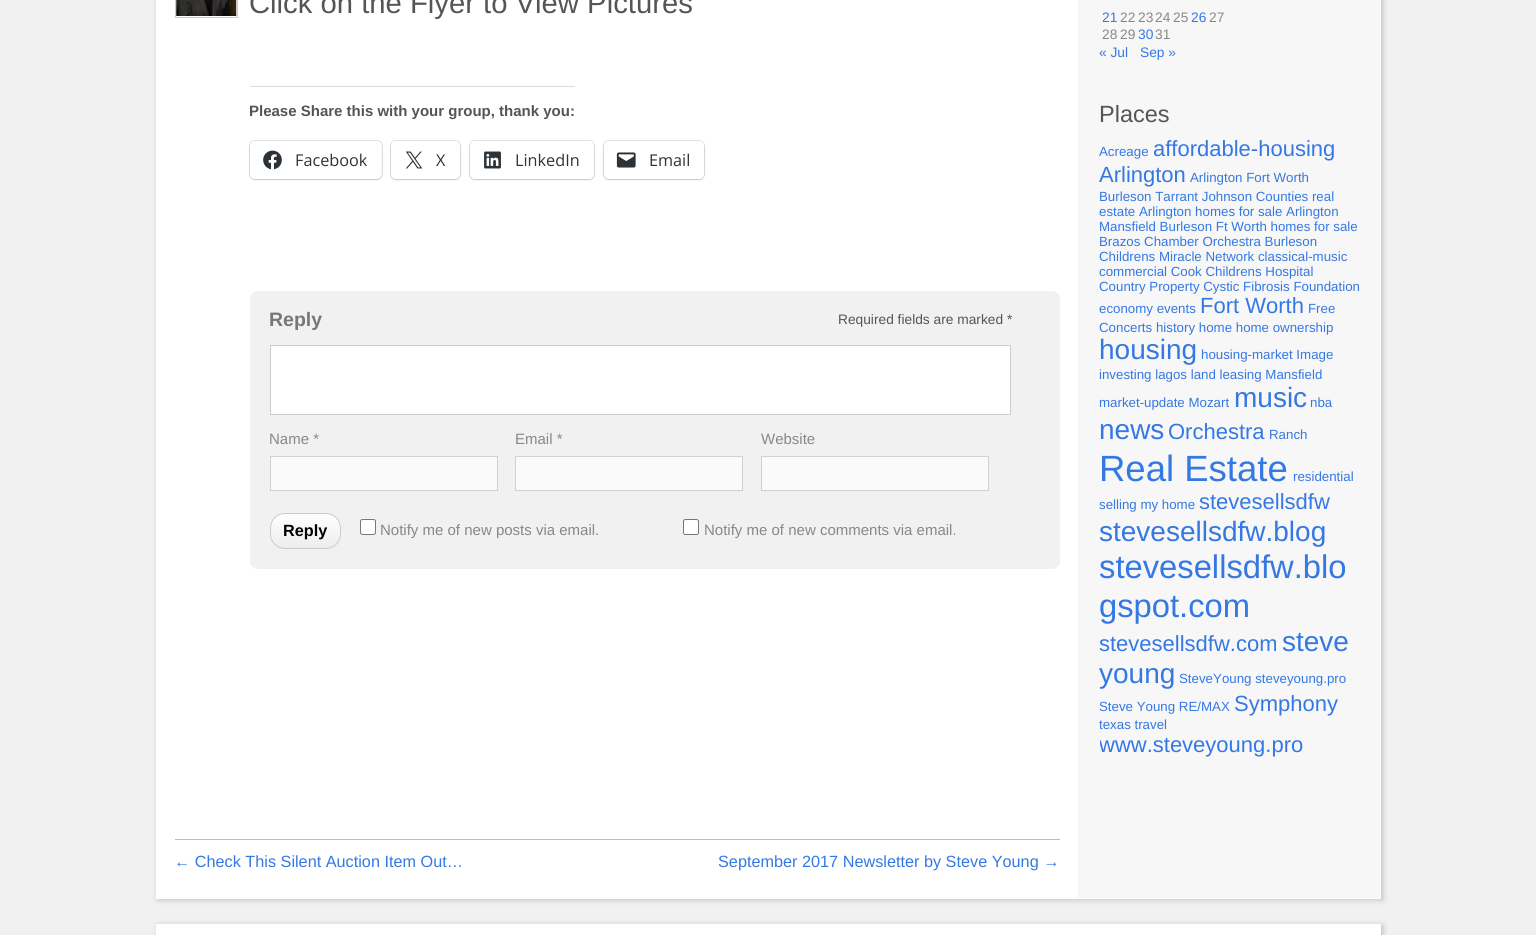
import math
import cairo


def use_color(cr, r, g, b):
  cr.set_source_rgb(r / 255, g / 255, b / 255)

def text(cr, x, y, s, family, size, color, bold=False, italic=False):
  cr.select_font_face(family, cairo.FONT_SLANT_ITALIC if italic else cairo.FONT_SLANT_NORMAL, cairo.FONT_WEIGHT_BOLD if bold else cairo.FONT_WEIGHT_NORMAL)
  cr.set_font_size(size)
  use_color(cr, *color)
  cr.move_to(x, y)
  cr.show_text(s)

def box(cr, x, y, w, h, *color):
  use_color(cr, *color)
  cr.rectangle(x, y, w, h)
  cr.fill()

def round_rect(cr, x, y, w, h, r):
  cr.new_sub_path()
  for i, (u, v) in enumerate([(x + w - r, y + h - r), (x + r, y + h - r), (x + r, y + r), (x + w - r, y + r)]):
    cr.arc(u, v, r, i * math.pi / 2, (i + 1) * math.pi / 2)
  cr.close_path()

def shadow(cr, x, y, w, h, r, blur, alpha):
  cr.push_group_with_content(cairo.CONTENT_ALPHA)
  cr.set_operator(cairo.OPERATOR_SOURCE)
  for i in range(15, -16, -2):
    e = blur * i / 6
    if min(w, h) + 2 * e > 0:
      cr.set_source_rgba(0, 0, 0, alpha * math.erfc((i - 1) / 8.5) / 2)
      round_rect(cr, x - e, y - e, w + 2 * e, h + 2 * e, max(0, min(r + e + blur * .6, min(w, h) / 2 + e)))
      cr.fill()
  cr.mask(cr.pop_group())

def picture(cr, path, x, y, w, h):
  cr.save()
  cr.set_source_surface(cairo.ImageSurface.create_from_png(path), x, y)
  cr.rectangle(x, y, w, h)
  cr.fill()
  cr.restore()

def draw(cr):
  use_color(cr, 241, 241, 241)
  cr.paint()
  use_color(cr, 0, 0, 0)
  shadow(cr, 158, -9, 1225, 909, 0, 3, 0.2)
  box(cr, 157, 0, 1, 898, 255, 255, 255)
  box(cr, 1078, 0, 302, 898, 247, 247, 247)
  cr.rectangle(156.5, -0.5, 1224, 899)
  use_color(cr, 255, 255, 255)
  cr.set_line_width(1)
  cr.stroke()
  box(cr, 158, 0, 920, 898, 255, 255, 255)
  cr.rectangle(175.5, -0.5, 62, 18)
  use_color(cr, 204, 204, 204)
  cr.stroke()
  picture(cr, "img_01.png", 176, 0, 61, 16)
  box(cr, 250, 86, 325, 1, 220, 220, 222)
  round_rect(cr, 249.5, 140.5, 133, 39, 5.5)
  use_color(cr, 224, 224, 224)
  cr.stroke()
  use_color(cr, 0, 0, 0)
  shadow(cr, 250, 143, 131, 37, 5, 1, 0.12)
  use_color(cr, 255, 255, 255)
  round_rect(cr, 250, 141, 131, 38, 5)
  cr.fill()
  picture(cr, "img_02.png", 263, 150, 19, 20)
  round_rect(cr, 390.5, 140.5, 70, 39, 5.5)
  use_color(cr, 224, 224, 224)
  cr.stroke()
  use_color(cr, 0, 0, 0)
  shadow(cr, 391, 143, 69, 37, 5, 1, 0.12)
  use_color(cr, 255, 255, 255)
  round_rect(cr, 391, 141, 69, 38, 5)
  cr.fill()
  picture(cr, "img_03.png", 405, 151, 18, 18)
  round_rect(cr, 469.5, 140.5, 125, 39, 5.5)
  use_color(cr, 224, 224, 224)
  cr.stroke()
  use_color(cr, 0, 0, 0)
  shadow(cr, 470, 143, 124, 37, 5, 1, 0.12)
  use_color(cr, 255, 255, 255)
  round_rect(cr, 470, 141, 124, 38, 5)
  cr.fill()
  picture(cr, "img_04.png", 484, 151, 17, 18)
  round_rect(cr, 603.5, 140.5, 101, 39, 5.5)
  use_color(cr, 224, 224, 224)
  cr.stroke()
  use_color(cr, 0, 0, 0)
  shadow(cr, 604, 143, 100, 37, 5, 1, 0.12)
  use_color(cr, 255, 255, 255)
  round_rect(cr, 604, 141, 100, 38, 5)
  cr.fill()
  picture(cr, "img_05.png", 616, 152, 20, 16)
  use_color(cr, 241, 241, 241)
  round_rect(cr, 250, 291, 810, 278, 8)
  cr.fill()
  use_color(cr, 255, 255, 255)
  cr.rectangle(270.5, 345.5, 740, 69)
  cr.fill_preserve()
  use_color(cr, 204, 204, 204)
  cr.stroke()
  use_color(cr, 250, 250, 250)
  cr.rectangle(270.5, 456.5, 227, 34)
  cr.fill_preserve()
  use_color(cr, 209, 209, 209)
  cr.stroke()
  use_color(cr, 250, 250, 250)
  cr.rectangle(515.5, 456.5, 227, 34)
  cr.fill_preserve()
  use_color(cr, 209, 209, 209)
  cr.stroke()
  use_color(cr, 250, 250, 250)
  cr.rectangle(761.5, 456.5, 227, 34)
  cr.fill_preserve()
  use_color(cr, 209, 209, 209)
  cr.stroke()
  cr.save()
  round_rect(cr, 270, 513, 71, 36, 15)
  cr.clip()
  gradient = cairo.LinearGradient(306, 514, 306, 548)
  gradient.add_color_stop_rgba(0, 1, 1, 1, 1)
  gradient.add_color_stop_rgba(1, 0.929, 0.929, 0.929, 1)
  cr.set_source(gradient)
  cr.rectangle(270, 514, 71, 34)
  cr.fill()
  cr.restore()
  round_rect(cr, 270.5, 513.5, 70, 35, 14.5)
  use_color(cr, 204, 204, 204)
  cr.stroke()
  use_color(cr, 255, 255, 255)
  round_rect(cr, 360.5, 519.5, 15, 15, 2)
  cr.fill_preserve()
  use_color(cr, 118, 118, 118)
  cr.stroke()
  use_color(cr, 255, 255, 255)
  round_rect(cr, 683.5, 519.5, 15, 15, 2)
  cr.fill_preserve()
  use_color(cr, 118, 118, 118)
  cr.stroke()
  box(cr, 175, 839, 885, 1, 187, 187, 187)
  use_color(cr, 0, 0, 0)
  shadow(cr, 158, 925, 1225, 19, 0, 3, 0.2)
  box(cr, 156, 924, 1225, 11, 255, 255, 255)
  text(cr, 249, 13, "Click on the Flyer to View Pictures", "Liberation Sans", 29.25, (85, 85, 85))
  text(cr, 249, 116, "Please Share this with your group, thank you:", "Liberation Sans", 15, (85, 85, 85), bold=True)
  text(cr, 295, 166, "Facebook", "Open Sans", 16.25, (44, 51, 56))
  text(cr, 436, 166, "X", "Open Sans", 16.25, (44, 51, 56))
  text(cr, 515, 166, "LinkedIn", "Open Sans", 16.25, (44, 51, 56))
  text(cr, 649, 166, "Email", "Open Sans", 16.25, (44, 51, 56))
  text(cr, 269, 326, "Reply", "Liberation Sans", 19.5, (119, 119, 119), bold=True)
  text(cr, 838, 324, "Required fields are marked *", "Liberation Sans", 13.75, (85, 85, 85))
  text(cr, 269, 444, "Name *", "Liberation Sans", 15, (136, 136, 136))
  text(cr, 515, 444, "Email *", "Liberation Sans", 15, (136, 136, 136))
  text(cr, 761, 444, "Website", "Liberation Sans", 15, (136, 136, 136))
  text(cr, 283, 536, "Reply", "Liberation Sans", 16.25, (0, 0, 0), bold=True)
  text(cr, 380, 535, "Notify me of new posts via email.", "Liberation Sans", 15, (136, 136, 136))
  text(cr, 704, 535, "Notify me of new comments via email.", "Liberation Sans", 15, (136, 136, 136))
  text(cr, 174, 867, "← Check This Silent Auction Item Out…", "Liberation Sans", 16.25, (52, 120, 227))
  text(cr, 718, 867, "September 2017 Newsletter by Steve Young →", "Liberation Sans", 16.25, (52, 120, 227))
  text(cr, 1102, 22, "21", "Liberation Sans", 13.75, (52, 120, 227))
  text(cr, 1120, 22, "22", "Liberation Sans", 13.75, (136, 136, 136))
  text(cr, 1138, 22, "23", "Liberation Sans", 13.75, (136, 136, 136))
  text(cr, 1155, 22, "24", "Liberation Sans", 13.75, (136, 136, 136))
  text(cr, 1173, 22, "25", "Liberation Sans", 13.75, (136, 136, 136))
  text(cr, 1191, 22, "26", "Liberation Sans", 13.75, (52, 120, 227))
  text(cr, 1209, 22, "27", "Liberation Sans", 13.75, (136, 136, 136))
  text(cr, 1102, 39, "28", "Liberation Sans", 13.75, (136, 136, 136))
  text(cr, 1120, 39, "29", "Liberation Sans", 13.75, (136, 136, 136))
  text(cr, 1138, 39, "30", "Liberation Sans", 13.75, (52, 120, 227))
  text(cr, 1155, 39, "31", "Liberation Sans", 13.75, (136, 136, 136))
  text(cr, 1099, 57, "« Jul", "Liberation Sans", 13.75, (52, 120, 227))
  text(cr, 1140, 57, "Sep »", "Liberation Sans", 13.75, (52, 120, 227))
  text(cr, 1099, 122, "Places", "Liberation Sans", 23.5, (85, 85, 85))
  text(cr, 1099, 156, "Acreage", "Liberation Sans", 13.3, (52, 120, 227))
  text(cr, 1153, 156, "affordable-housing", "Liberation Sans", 22, (52, 120, 227))
  text(cr, 1099, 182, "Arlington", "Liberation Sans", 22, (52, 120, 227))
  text(cr, 1190, 182, "Arlington Fort Worth", "Liberation Sans", 13.3, (52, 120, 227))
  text(cr, 1099, 201, "Burleson Tarrant Johnson Counties real", "Liberation Sans", 13.3, (52, 120, 227))
  text(cr, 1099, 216, "estate Arlington homes for sale Arlington", "Liberation Sans", 13.3, (52, 120, 227))
  text(cr, 1099, 231, "Mansfield Burleson Ft Worth homes for sale", "Liberation Sans", 13.3, (52, 120, 227))
  text(cr, 1099, 246, "Brazos Chamber Orchestra Burleson", "Liberation Sans", 13.3, (52, 120, 227))
  text(cr, 1099, 261, "Childrens Miracle Network classical-music", "Liberation Sans", 13.3, (52, 120, 227))
  text(cr, 1099, 276, "commercial Cook Childrens Hospital", "Liberation Sans", 13.3, (52, 120, 227))
  text(cr, 1099, 291, "Country Property Cystic Fibrosis Foundation", "Liberation Sans", 13.3, (52, 120, 227))
  text(cr, 1099, 313, "economy events", "Liberation Sans", 13.3, (52, 120, 227))
  text(cr, 1200, 313, "Fort Worth", "Liberation Sans", 22, (52, 120, 227))
  text(cr, 1308, 313, "Free", "Liberation Sans", 13.3, (52, 120, 227))
  text(cr, 1099, 332, "Concerts history home home ownership", "Liberation Sans", 13.3, (52, 120, 227))
  text(cr, 1099, 359, "housing", "Liberation Sans", 28, (52, 120, 227))
  text(cr, 1201, 359, "housing-market Image", "Liberation Sans", 13.3, (52, 120, 227))
  text(cr, 1099, 379, "investing lagos land leasing Mansfield", "Liberation Sans", 13.3, (52, 120, 227))
  text(cr, 1099, 407, "market-update Mozart", "Liberation Sans", 13.3, (52, 120, 227))
  text(cr, 1234, 407, "music", "Liberation Sans", 28, (52, 120, 227))
  text(cr, 1310, 407, "nba", "Liberation Sans", 13.3, (52, 120, 227))
  text(cr, 1099, 439, "news", "Liberation Sans", 28, (52, 120, 227))
  text(cr, 1168, 439, "Orchestra", "Liberation Sans", 22, (52, 120, 227))
  text(cr, 1269, 439, "Ranch", "Liberation Sans", 13.3, (52, 120, 227))
  text(cr, 1099, 481, "Real Estate", "Liberation Sans", 36.5, (52, 120, 227))
  text(cr, 1293, 481, "residential", "Liberation Sans", 13.3, (52, 120, 227))
  text(cr, 1099, 509, "selling my home", "Liberation Sans", 13.3, (52, 120, 227))
  text(cr, 1199, 509, "stevesellsdfw", "Liberation Sans", 22, (52, 120, 227))
  text(cr, 1099, 541, "stevesellsdfw.blog", "Liberation Sans", 28, (52, 120, 227))
  text(cr, 1099, 578, "stevesellsdfw.blo", "Liberation Sans", 32.75, (52, 120, 227))
  text(cr, 1099, 617, "gspot.com", "Liberation Sans", 32.75, (52, 120, 227))
  text(cr, 1099, 651, "stevesellsdfw.com", "Liberation Sans", 22, (52, 120, 227))
  text(cr, 1282, 651, "steve", "Liberation Sans", 28, (52, 120, 227))
  text(cr, 1099, 683, "young", "Liberation Sans", 28, (52, 120, 227))
  text(cr, 1179, 683, "SteveYoung steveyoung.pro", "Liberation Sans", 13.3, (52, 120, 227))
  text(cr, 1099, 711, "Steve Young RE/MAX", "Liberation Sans", 13.3, (52, 120, 227))
  text(cr, 1234, 711, "Symphony", "Liberation Sans", 22, (52, 120, 227))
  text(cr, 1099, 729, "texas travel", "Liberation Sans", 13.3, (52, 120, 227))
  cr.save()
  cr.rectangle(1100, 90, 265, 699)
  cr.clip()
  text(cr, 1099, 752, "www.steveyoung.pro", "Liberation Sans", 22, (52, 120, 227))
  cr.restore()


surface = cairo.ImageSurface(cairo.FORMAT_RGB24, 1536, 935)
cr = cairo.Context(surface)
options = cairo.FontOptions()
options.set_hint_metrics(cairo.HINT_METRICS_OFF)
options.set_hint_style(cairo.HINT_STYLE_NONE)
cr.set_font_options(options)
cr.set_miter_limit(4)
draw(cr)
surface.write_to_png("out.png")
